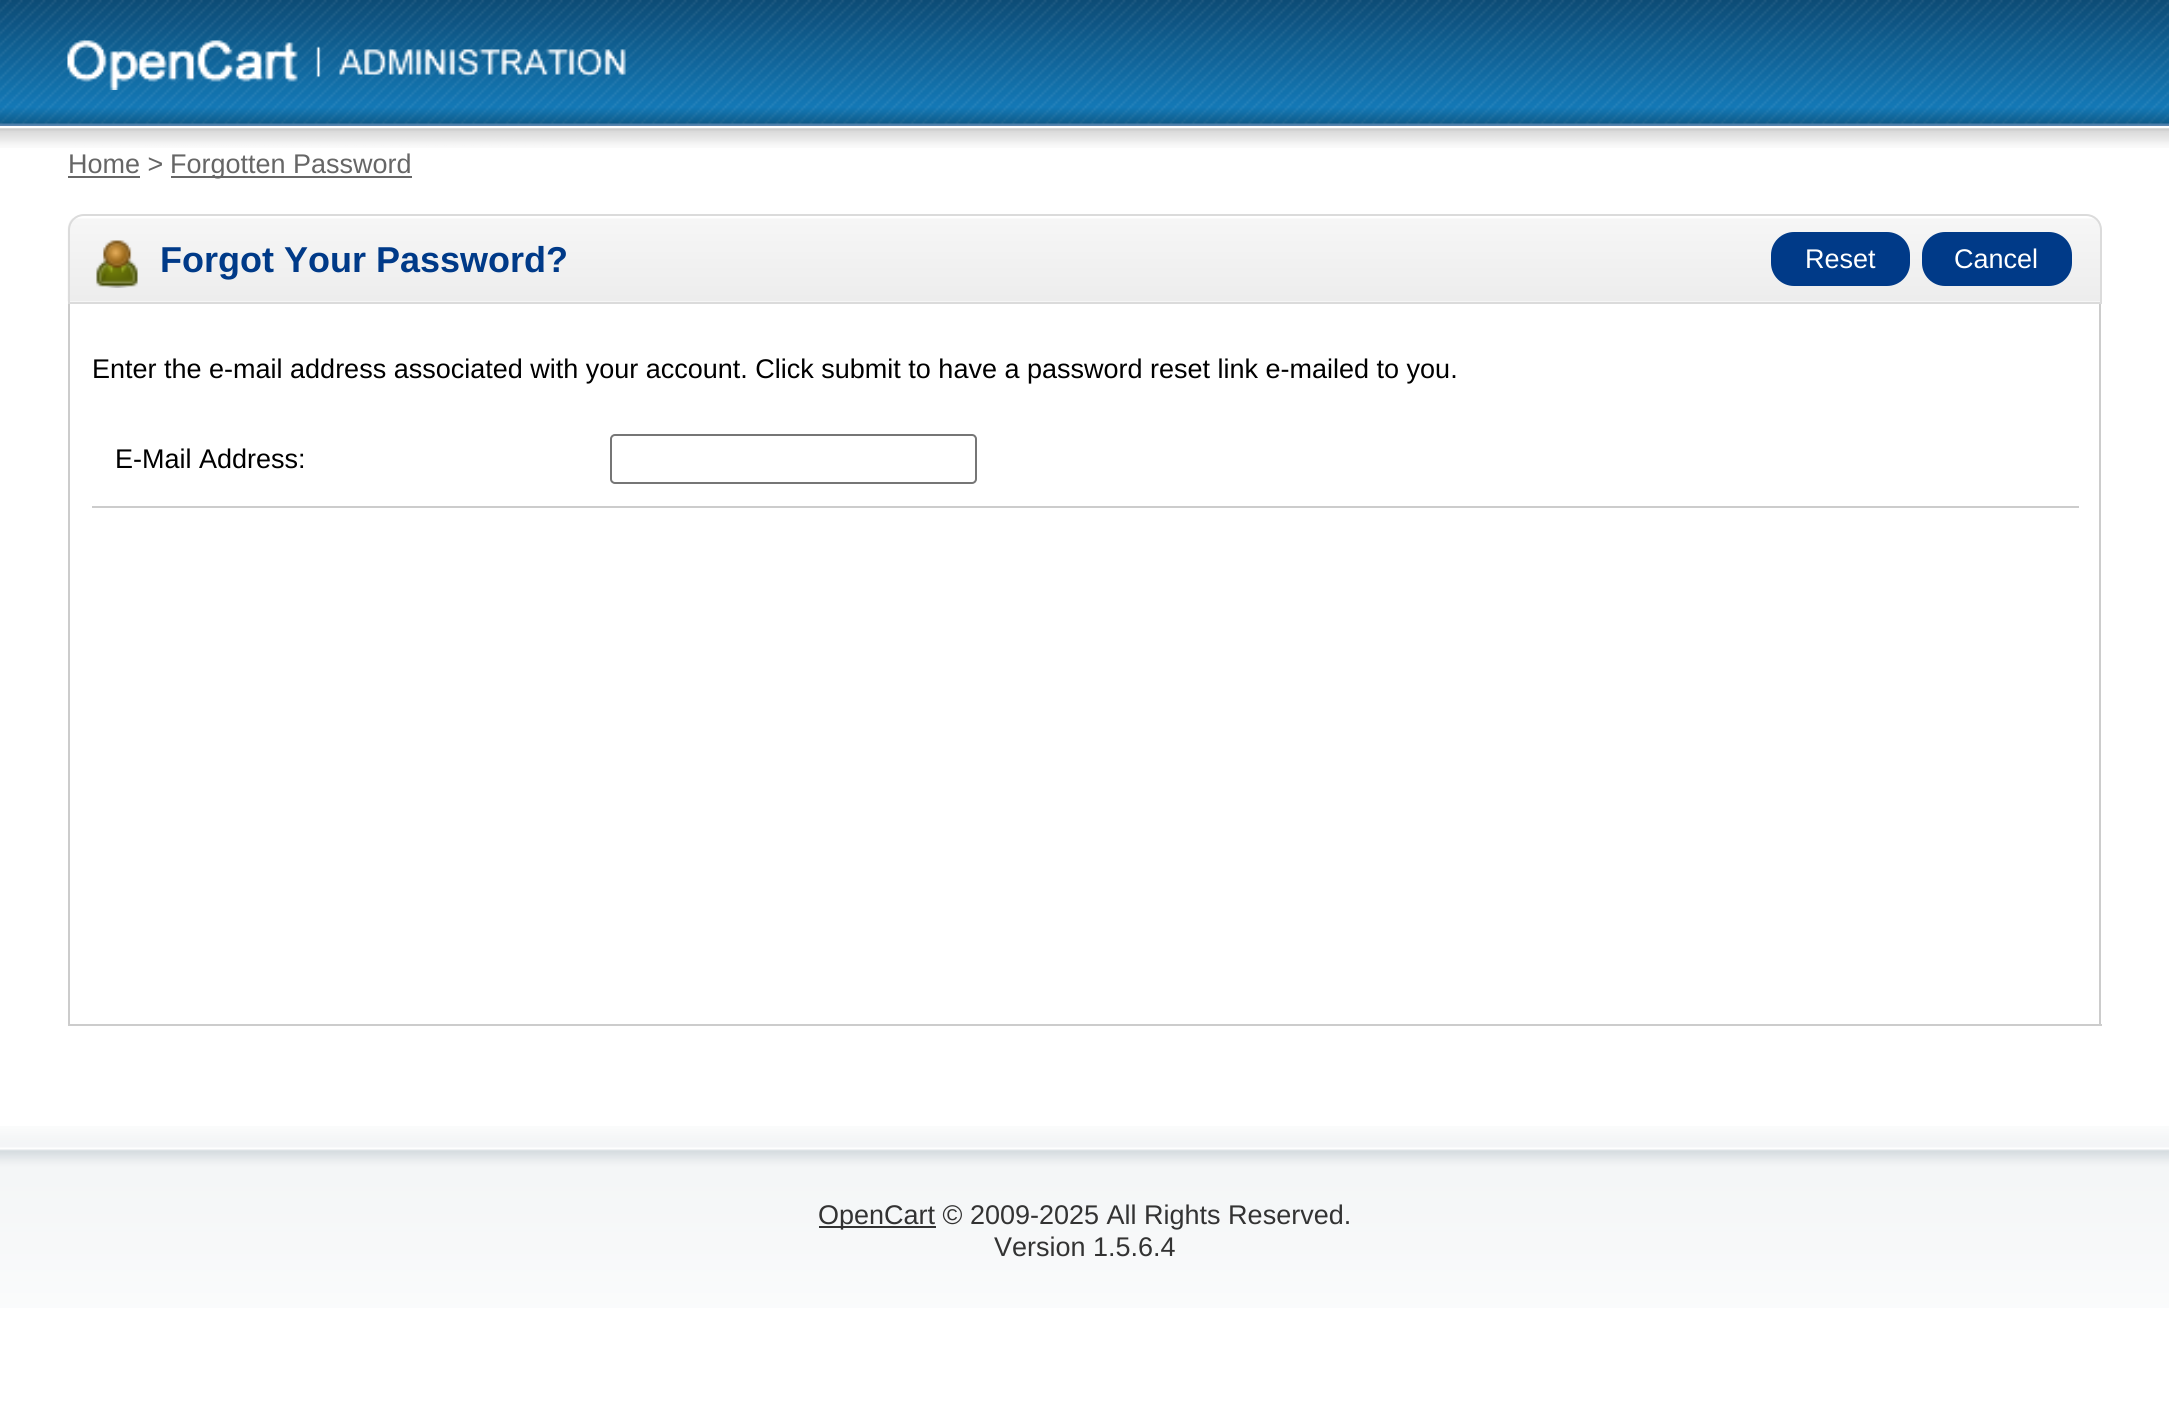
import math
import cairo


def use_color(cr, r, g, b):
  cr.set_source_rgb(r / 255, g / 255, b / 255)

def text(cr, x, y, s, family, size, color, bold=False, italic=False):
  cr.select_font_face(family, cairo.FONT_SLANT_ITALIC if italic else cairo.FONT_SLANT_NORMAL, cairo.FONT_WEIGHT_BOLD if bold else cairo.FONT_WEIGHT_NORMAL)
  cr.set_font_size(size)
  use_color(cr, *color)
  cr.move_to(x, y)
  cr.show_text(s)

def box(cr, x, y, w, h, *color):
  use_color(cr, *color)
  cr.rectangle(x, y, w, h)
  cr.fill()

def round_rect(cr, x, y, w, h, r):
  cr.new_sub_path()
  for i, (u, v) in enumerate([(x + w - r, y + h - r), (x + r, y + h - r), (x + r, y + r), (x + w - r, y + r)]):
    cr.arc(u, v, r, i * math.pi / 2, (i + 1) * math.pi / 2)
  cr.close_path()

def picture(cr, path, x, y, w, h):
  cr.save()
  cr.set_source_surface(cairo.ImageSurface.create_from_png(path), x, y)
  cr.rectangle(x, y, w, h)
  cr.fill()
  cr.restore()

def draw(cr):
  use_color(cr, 255, 255, 255)
  cr.paint()
  picture(cr, "img_01.png", 0, 0, 2169, 126)
  picture(cr, "img_02.png", 67, 40, 559, 50)
  picture(cr, "img_03.png", 0, 128, 2169, 20)
  box(cr, 68, 176, 72, 2, 102, 102, 102)
  box(cr, 171, 176, 241, 2, 102, 102, 102)
  picture(cr, "img_04.png", 67, 218, 2035, 84)
  cr.new_path()
  cr.move_to(84, 215)
  cr.line_to(2086, 215)
  cr.curve_to(2094.5, 215, 2101, 221.5, 2101, 230)
  cr.line_to(2101, 303)
  cr.line_to(69, 303)
  cr.line_to(69, 230)
  cr.curve_to(69, 221.5, 75.5, 215, 84, 215)
  cr.close_path()
  use_color(cr, 219, 219, 219)
  cr.stroke()
  picture(cr, "img_05.png", 96, 240, 42, 48)
  use_color(cr, 0, 58, 136)
  round_rect(cr, 1771, 232, 139, 54, 23)
  cr.fill()
  round_rect(cr, 1922, 232, 150, 54, 23)
  cr.fill()
  box(cr, 2099, 304, 2, 722, 204, 204, 204)
  box(cr, 68, 1024, 2034, 2, 204, 204, 204)
  box(cr, 68, 304, 2, 722, 204, 204, 204)
  box(cr, 92, 506, 1987, 2, 204, 204, 204)
  round_rect(cr, 611, 435, 365, 48, 4)
  use_color(cr, 118, 118, 118)
  cr.stroke()
  picture(cr, "img_06.png", 0, 1126, 2169, 182)
  box(cr, 819, 1226, 117, 2, 51, 51, 51)
  text(cr, 68, 173, "Home >", "Liberation Sans", 27, (102, 102, 102))
  text(cr, 170, 173, "Forgotten Password", "Liberation Sans", 27, (102, 102, 102))
  text(cr, 160, 272, "Forgot Your Password?", "Liberation Sans", 36, (0, 58, 136), bold=True)
  text(cr, 1805, 268, "Reset", "Liberation Sans", 27, (255, 255, 255))
  text(cr, 1954, 268, "Cancel", "Liberation Sans", 27, (255, 255, 255))
  text(cr, 92, 378, "Enter the e-mail address associated with your account. Click submit to have a password reset link e-mailed to you.", "Liberation Sans", 27, (0, 0, 0))
  text(cr, 115, 468, "E-Mail Address:", "Liberation Sans", 27, (0, 0, 0))
  text(cr, 818, 1224, "OpenCart © 2009-2025 All Rights Reserved.", "Liberation Sans", 27, (51, 51, 51))
  text(cr, 994, 1256, "Version 1.5.6.4", "Liberation Sans", 27, (51, 51, 51))


surface = cairo.ImageSurface(cairo.FORMAT_RGB24, 2169, 1401)
cr = cairo.Context(surface)
options = cairo.FontOptions()
options.set_hint_metrics(cairo.HINT_METRICS_OFF)
options.set_hint_style(cairo.HINT_STYLE_NONE)
cr.set_font_options(options)
cr.set_miter_limit(4)
draw(cr)
surface.write_to_png("out.png")
